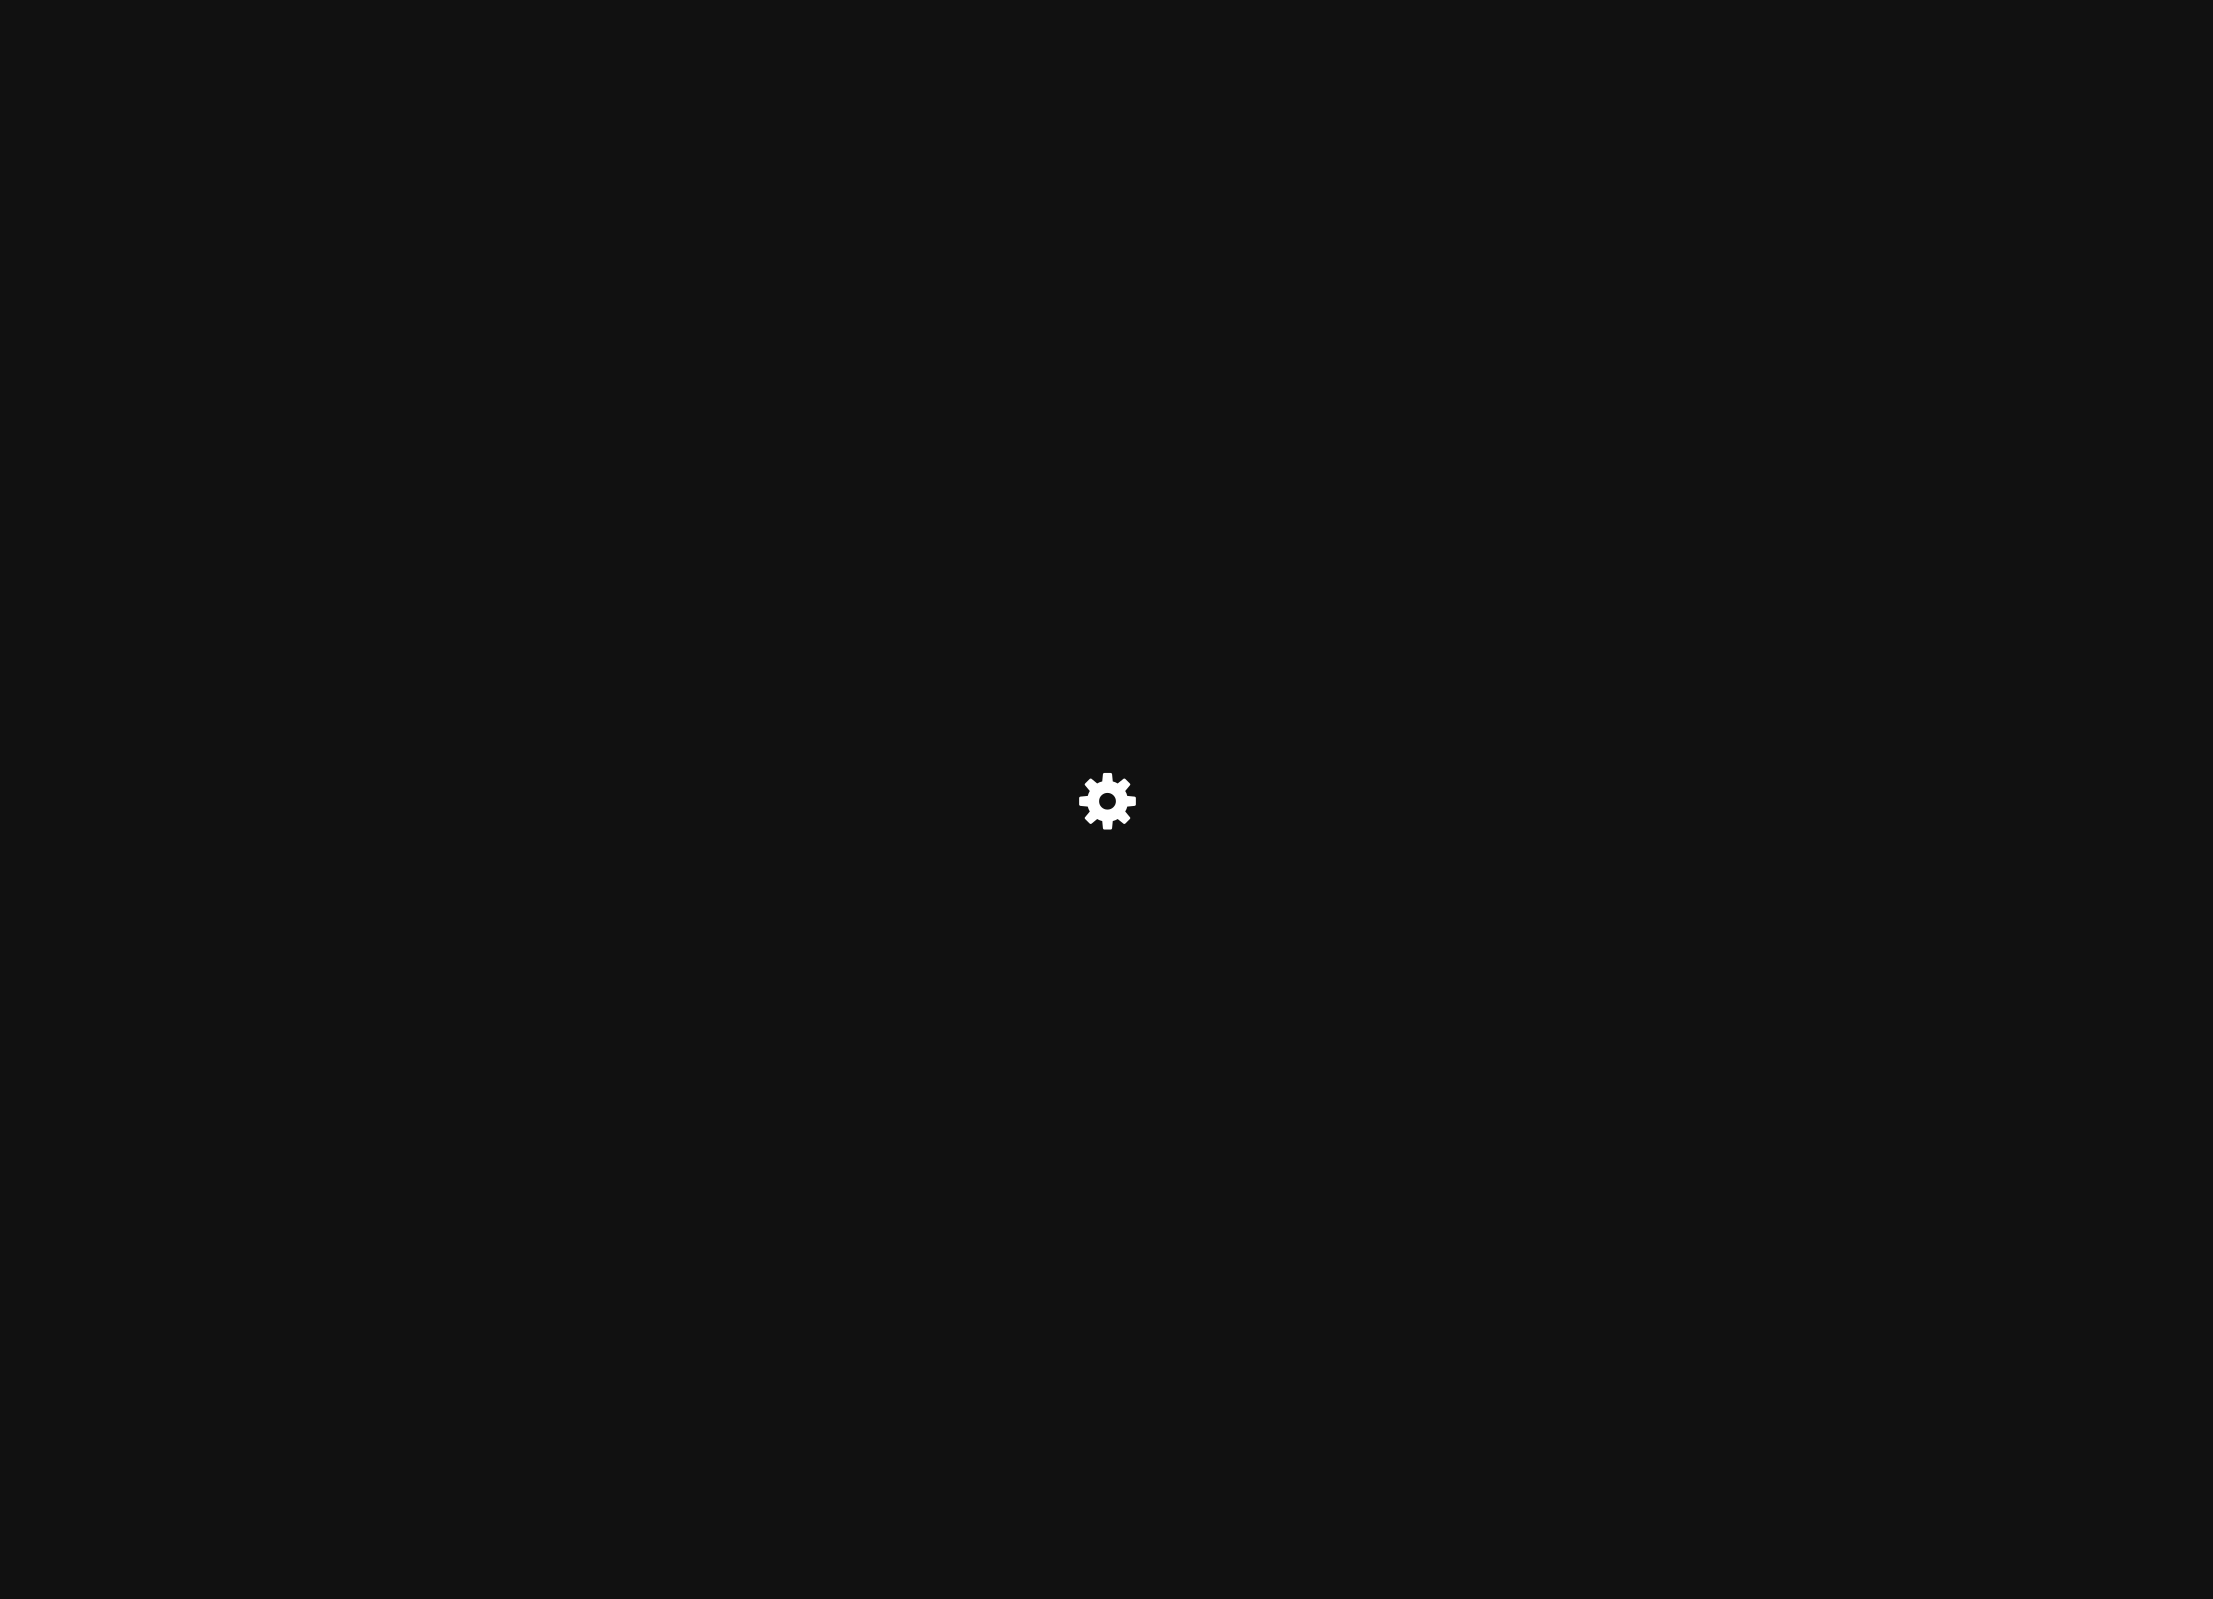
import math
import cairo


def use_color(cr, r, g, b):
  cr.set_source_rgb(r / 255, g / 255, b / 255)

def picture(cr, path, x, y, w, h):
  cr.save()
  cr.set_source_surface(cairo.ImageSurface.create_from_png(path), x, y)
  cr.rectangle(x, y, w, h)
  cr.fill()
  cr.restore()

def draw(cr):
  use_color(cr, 17, 17, 17)
  cr.paint()
  picture(cr, "img_01.png", 887, 62, 440, 86)
  picture(cr, "img_02.png", 1079, 772, 57, 58)


surface = cairo.ImageSurface(cairo.FORMAT_RGB24, 2213, 1599)
cr = cairo.Context(surface)
options = cairo.FontOptions()
options.set_hint_metrics(cairo.HINT_METRICS_OFF)
options.set_hint_style(cairo.HINT_STYLE_NONE)
cr.set_font_options(options)
cr.set_miter_limit(4)
draw(cr)
surface.write_to_png("out.png")
